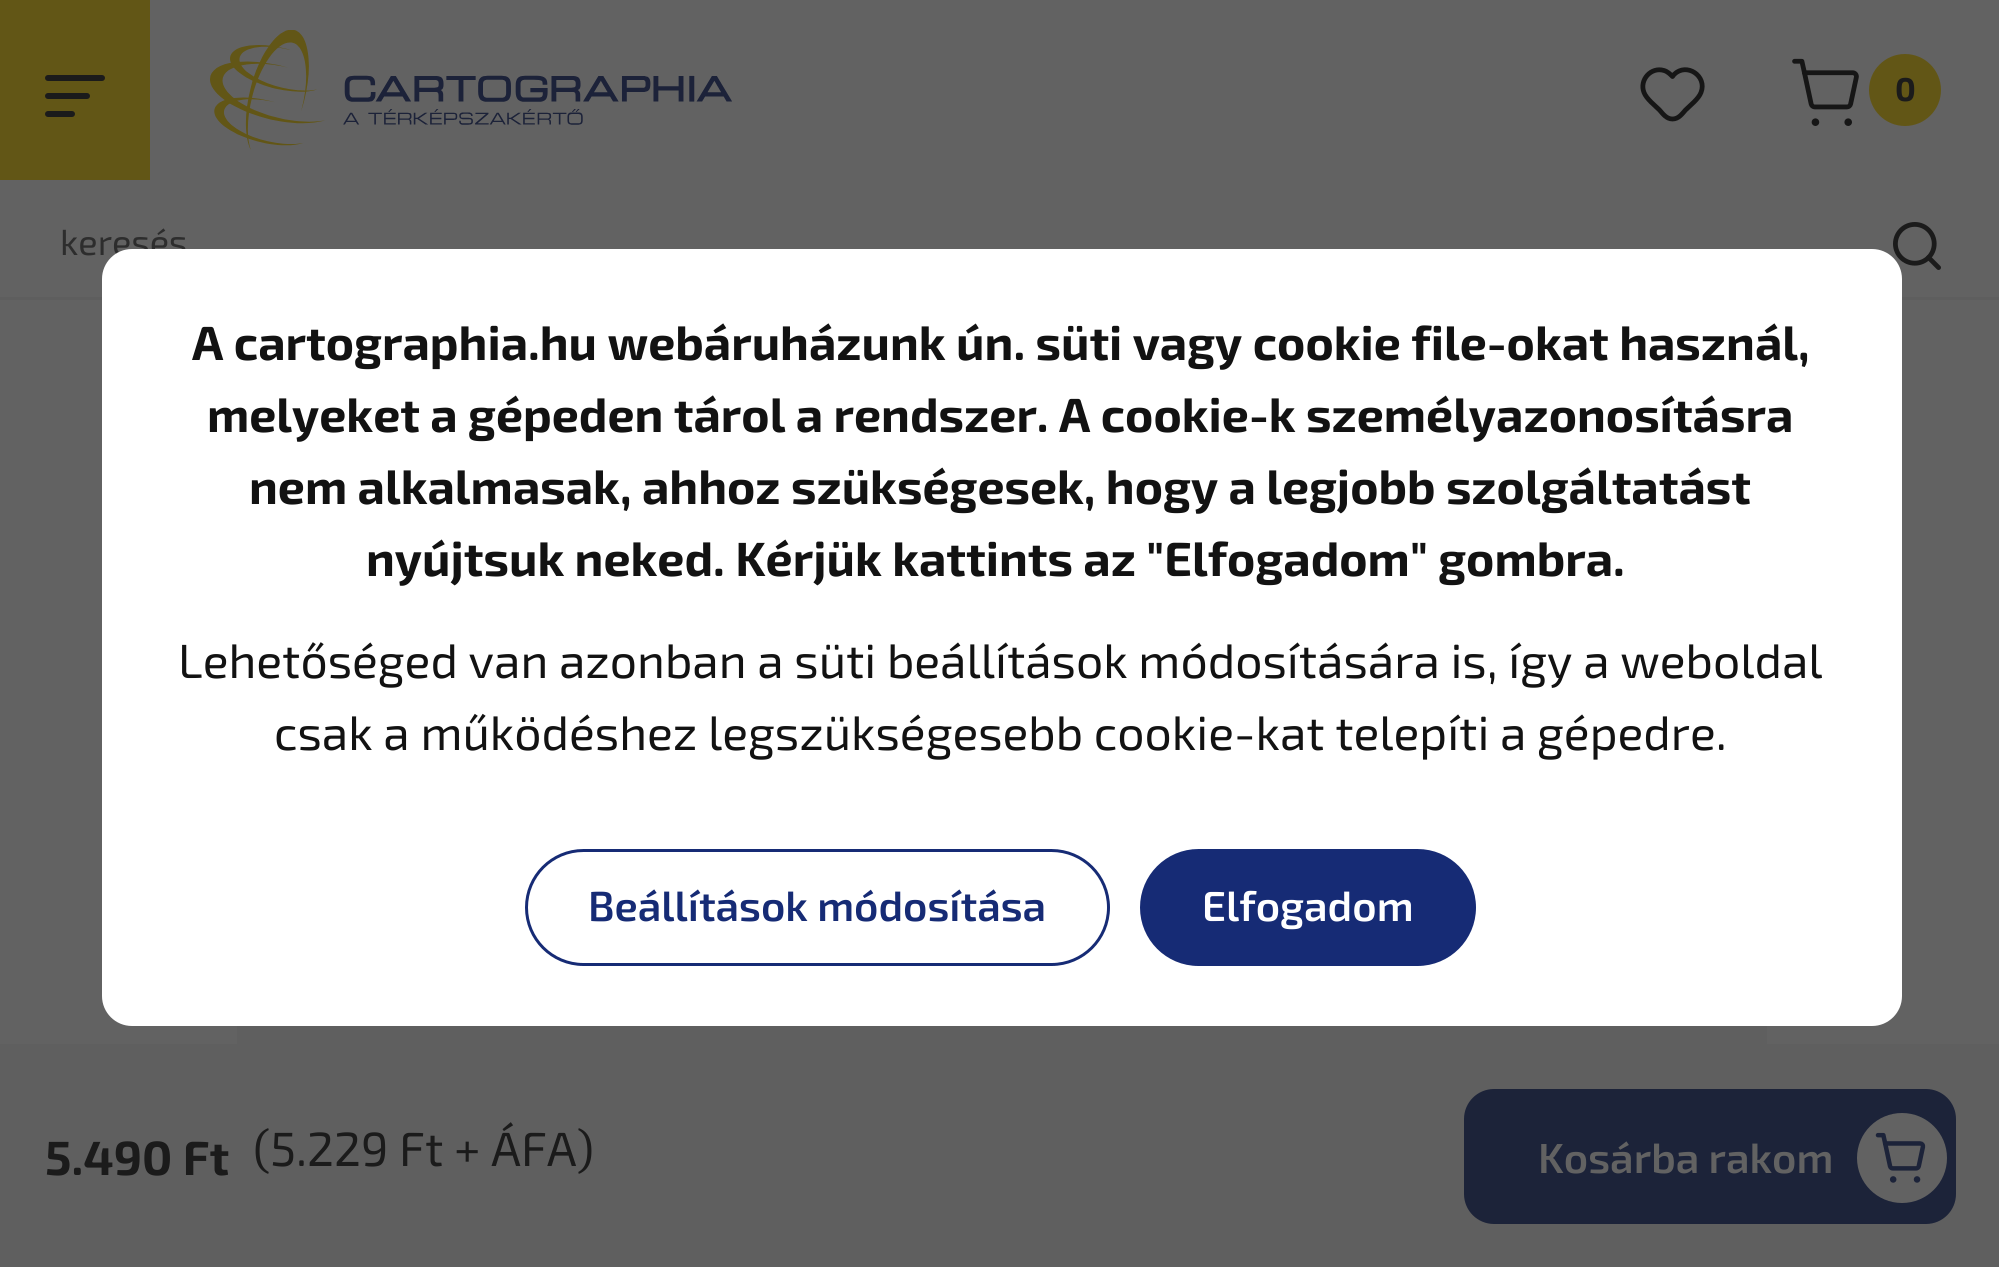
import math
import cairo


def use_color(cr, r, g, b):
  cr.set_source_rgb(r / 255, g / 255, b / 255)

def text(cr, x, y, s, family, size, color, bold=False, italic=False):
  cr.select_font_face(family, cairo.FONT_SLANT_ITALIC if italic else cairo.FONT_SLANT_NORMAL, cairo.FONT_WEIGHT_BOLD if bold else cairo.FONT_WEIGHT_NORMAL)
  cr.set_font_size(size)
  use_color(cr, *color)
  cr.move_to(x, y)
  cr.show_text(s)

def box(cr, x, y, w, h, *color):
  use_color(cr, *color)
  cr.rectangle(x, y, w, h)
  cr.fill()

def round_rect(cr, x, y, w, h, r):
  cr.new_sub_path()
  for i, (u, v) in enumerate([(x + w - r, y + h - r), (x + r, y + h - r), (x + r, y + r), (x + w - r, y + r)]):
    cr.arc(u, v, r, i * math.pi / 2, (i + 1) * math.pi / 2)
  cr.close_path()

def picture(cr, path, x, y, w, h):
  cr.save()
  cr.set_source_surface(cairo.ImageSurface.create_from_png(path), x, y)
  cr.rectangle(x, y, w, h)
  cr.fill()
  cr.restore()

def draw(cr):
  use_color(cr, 98, 98, 98)
  cr.paint()
  box(cr, 0, 0, 150, 180, 98, 86, 22)
  picture(cr, "img_01.png", 45, 75, 60, 42)
  picture(cr, "img_02.png", 210, 30, 522, 120)
  cr.new_path()
  cr.move_to(1674, 74.5)
  cr.line_to(1672.5, 76.5)
  cr.curve_to(1670, 74, 1667.5, 71.5, 1664, 70.5)
  cr.curve_to(1651, 66.5, 1639, 80, 1644, 92.5)
  cr.curve_to(1646.5, 99, 1655, 105.5, 1659.5, 110)
  cr.curve_to(1663, 114, 1666.5, 119, 1672.5, 119)
  cr.curve_to(1678.5, 119, 1682, 114, 1685.5, 110)
  cr.curve_to(1690, 105.5, 1698.5, 99, 1701, 92.5)
  cr.curve_to(1707.5, 76, 1686.5, 62, 1674, 74.5)
  cr.close_path()
  use_color(cr, 22, 22, 22)
  cr.set_line_width(4.8)
  cr.set_line_cap(cairo.LINE_CAP_ROUND)
  cr.set_line_join(cairo.LINE_JOIN_ROUND)
  cr.stroke()
  picture(cr, "img_03.png", 1792, 58, 67, 68)
  use_color(cr, 98, 86, 22)
  cr.arc(1905, 90, 36, 0, 2 * math.pi)
  cr.fill()
  box(cr, 0, 297, 1999, 3, 94, 94, 94)
  picture(cr, "img_04.png", 1893, 222, 48, 48)
  box(cr, 237, 1026, 1530, 18, 95, 95, 95)
  box(cr, 0, 1044, 1999, 223, 95, 95, 95)
  use_color(cr, 28, 35, 57)
  round_rect(cr, 1465.5, 1090.5, 489, 132, 28.5)
  cr.fill_preserve()
  cr.set_line_width(3)
  cr.set_line_cap(cairo.LINE_CAP_BUTT)
  cr.set_line_join(cairo.LINE_JOIN_MITER)
  cr.stroke()
  picture(cr, "img_05.png", 1857, 1113, 90, 90)
  text(cr, 1895, 101, "0", "Exo 2", 33, (27, 27, 27), bold=True)
  text(cr, 60, 255, "keresés", "Exo 2", 36, (45, 45, 45))
  text(cr, 45, 1175, "5.490 Ft", "Exo 2", 48, (27, 27, 27), bold=True)
  text(cr, 253, 1166, "(5.229 Ft + ÁFA)", "Exo 2", 48, (27, 27, 27))
  text(cr, 1538, 1173, "Kosárba rakom", "Exo 2 SemiBold", 42, (98, 98, 98))
  use_color(cr, 255, 255, 255)
  round_rect(cr, 102, 249, 1800, 777, 30)
  cr.fill()
  text(cr, 192, 360, "A cartographia.hu webáruházunk ún. süti vagy cookie file-okat használ,", "Exo 2", 48, (18, 18, 18), bold=True)
  text(cr, 207, 432, "melyeket a gépeden tárol a rendszer. A cookie-k személyazonosításra", "Exo 2", 48, (18, 18, 18), bold=True)
  text(cr, 249, 504, "nem alkalmasak, ahhoz szükségesek, hogy a legjobb szolgáltatást", "Exo 2", 48, (18, 18, 18), bold=True)
  text(cr, 366, 576, "nyújtsuk neked. Kérjük kattints az \"Elfogadom\" gombra.", "Exo 2", 48, (18, 18, 18), bold=True)
  text(cr, 178, 678, "Lehetőséged van azonban a süti beállítások módosítására is, így a weboldal", "Exo 2", 48, (18, 18, 18))
  text(cr, 274, 750, "csak a működéshez legszükségesebb cookie-kat telepíti a gépedre.", "Exo 2", 48, (18, 18, 18))
  round_rect(cr, 526.5, 850.5, 582, 114, 57)
  use_color(cr, 22, 43, 117)
  cr.stroke()
  text(cr, 588, 921, "Beállítások módosítása", "Exo 2 SemiBold", 42, (22, 43, 117))
  round_rect(cr, 1141.5, 850.5, 333, 114, 57)
  cr.fill_preserve()
  cr.stroke()
  text(cr, 1202, 921, "Elfogadom", "Exo 2 SemiBold", 42, (255, 255, 255))


surface = cairo.ImageSurface(cairo.FORMAT_RGB24, 1999, 1267)
cr = cairo.Context(surface)
options = cairo.FontOptions()
options.set_hint_metrics(cairo.HINT_METRICS_OFF)
options.set_hint_style(cairo.HINT_STYLE_NONE)
cr.set_font_options(options)
cr.set_miter_limit(4)
draw(cr)
surface.write_to_png("out.png")
